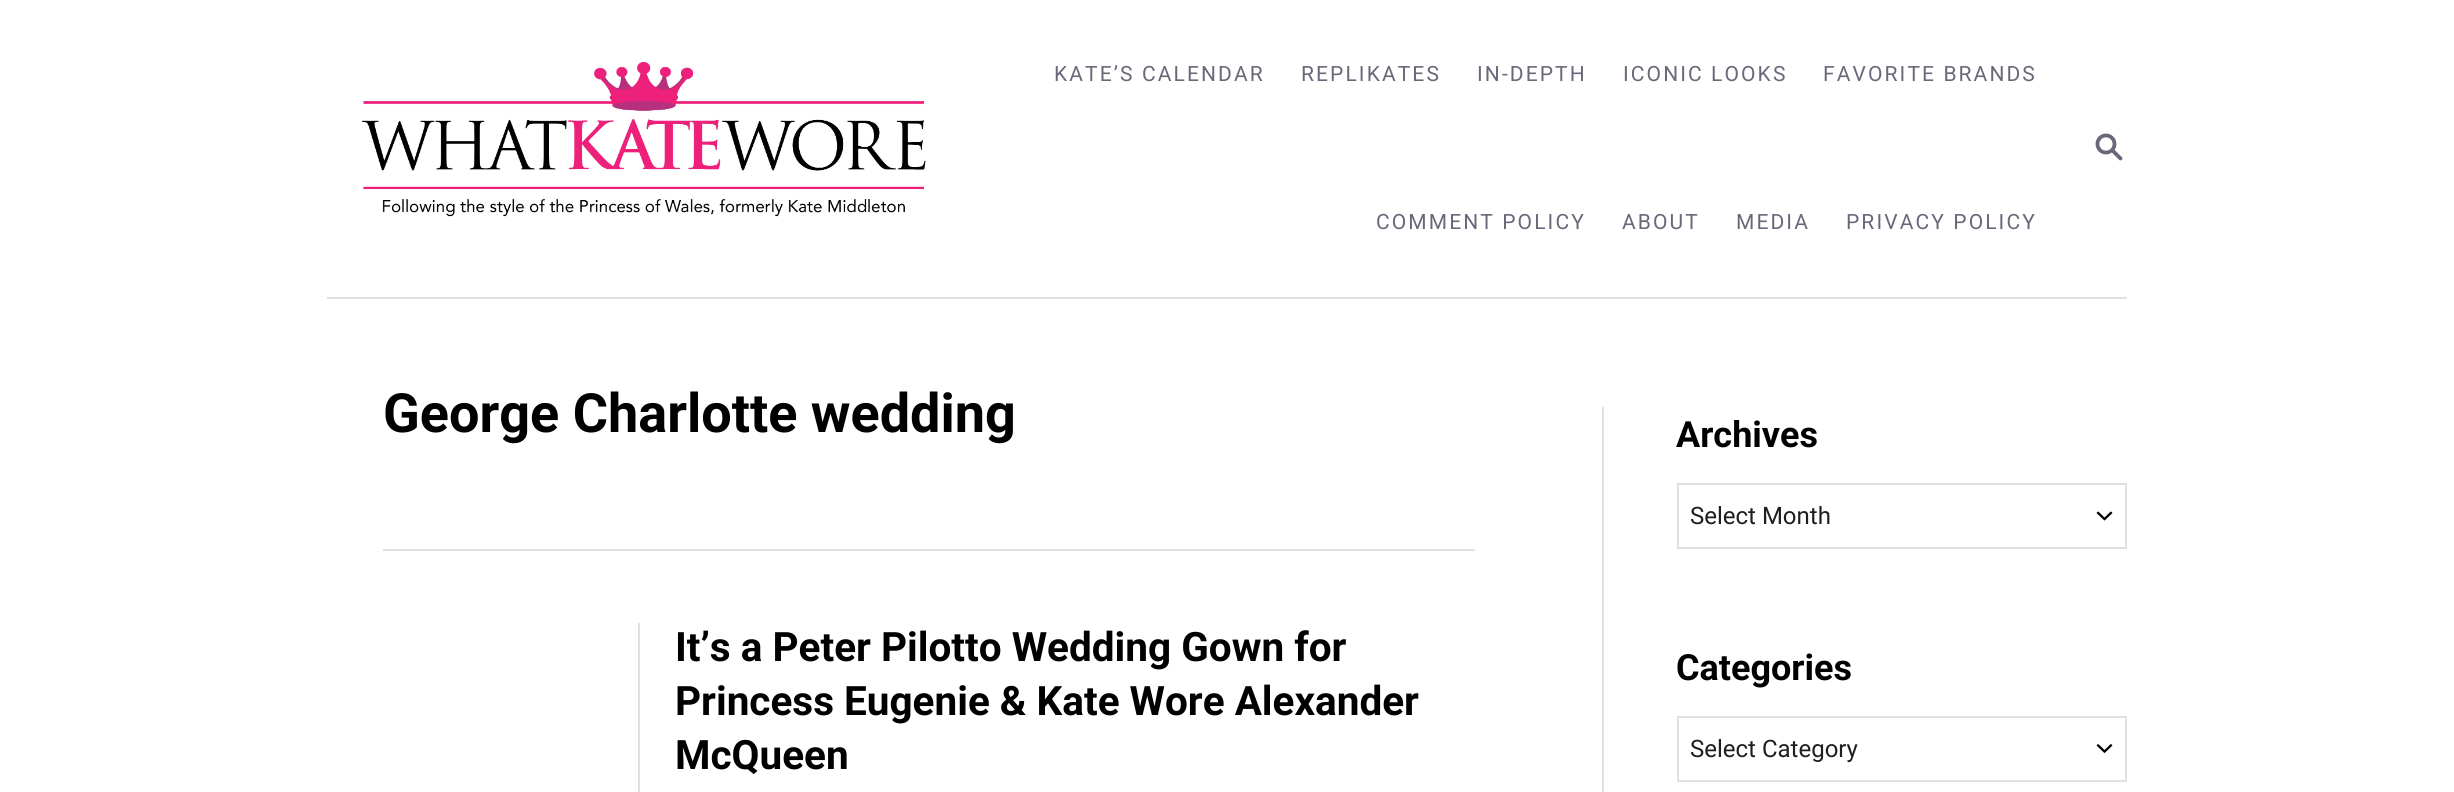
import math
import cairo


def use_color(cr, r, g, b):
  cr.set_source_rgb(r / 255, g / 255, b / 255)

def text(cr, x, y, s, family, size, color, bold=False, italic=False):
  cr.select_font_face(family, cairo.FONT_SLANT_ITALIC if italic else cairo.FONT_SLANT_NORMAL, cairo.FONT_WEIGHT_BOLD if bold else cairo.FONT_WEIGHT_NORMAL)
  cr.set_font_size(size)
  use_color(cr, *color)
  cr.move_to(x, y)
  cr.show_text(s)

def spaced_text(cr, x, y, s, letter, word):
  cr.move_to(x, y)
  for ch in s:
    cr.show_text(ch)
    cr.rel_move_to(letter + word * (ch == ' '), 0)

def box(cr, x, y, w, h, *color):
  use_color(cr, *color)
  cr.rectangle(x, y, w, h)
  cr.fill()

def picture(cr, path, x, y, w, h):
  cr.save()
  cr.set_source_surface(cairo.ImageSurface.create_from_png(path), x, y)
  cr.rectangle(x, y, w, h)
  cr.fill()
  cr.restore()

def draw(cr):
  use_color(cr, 255, 255, 255)
  cr.paint()
  box(cr, 327, 297, 1800, 2, 225, 225, 225)
  picture(cr, "img_01.png", 362, 61, 564, 156)
  picture(cr, "img_02.png", 2095, 133, 28, 28)
  box(cr, 383, 549, 1092, 2, 225, 225, 225)
  box(cr, 638, 623, 2, 169, 225, 225, 225)
  box(cr, 1602, 407, 2, 385, 225, 225, 225)
  picture(cr, "img_03.png", 2096, 511, 17, 10)
  cr.rectangle(1678, 484, 448, 64)
  cr.stroke()
  picture(cr, "img_04.png", 2096, 744, 17, 9)
  cr.rectangle(1678, 717, 448, 64)
  cr.stroke()
  cr.select_font_face("Roboto")
  cr.set_font_size(21)
  use_color(cr, 104, 104, 122)
  spaced_text(cr, 1054, 81, "KATE’S CALENDAR", 2.1, 0)
  spaced_text(cr, 1301, 81, "REPLIKATES", 2.1, 0)
  spaced_text(cr, 1477, 81, "IN-DEPTH", 2.1, 0)
  spaced_text(cr, 1623, 81, "ICONIC LOOKS", 2.1, 0)
  spaced_text(cr, 1823, 81, "FAVORITE BRANDS", 2.1, 0)
  spaced_text(cr, 1376, 229, "COMMENT POLICY", 2.1, 0)
  spaced_text(cr, 1622, 229, "ABOUT", 2.1, 0)
  spaced_text(cr, 1736, 229, "MEDIA", 2.1, 0)
  spaced_text(cr, 1846, 229, "PRIVACY POLICY", 2.1, 0)
  text(cr, 383, 432, "George Charlotte wedding", "Roboto", 54, (0, 0, 0), bold=True)
  text(cr, 675, 661, "It’s a Peter Pilotto Wedding Gown for", "Roboto", 40.5, (0, 0, 0), bold=True)
  text(cr, 675, 715, "Princess Eugenie & Kate Wore Alexander", "Roboto", 40.5, (0, 0, 0), bold=True)
  text(cr, 675, 769, "McQueen", "Roboto", 40.5, (0, 0, 0), bold=True)
  text(cr, 1676, 447, "Archives", "Roboto", 36, (0, 0, 0), bold=True)
  text(cr, 1690, 524, "Select Month", "Roboto", 24, (30, 30, 30))
  text(cr, 1676, 680, "Categories", "Roboto", 36, (0, 0, 0), bold=True)
  text(cr, 1690, 757, "Select Category", "Roboto", 24, (30, 30, 30))


surface = cairo.ImageSurface(cairo.FORMAT_RGB24, 2454, 792)
cr = cairo.Context(surface)
options = cairo.FontOptions()
options.set_hint_metrics(cairo.HINT_METRICS_OFF)
options.set_hint_style(cairo.HINT_STYLE_NONE)
cr.set_font_options(options)
cr.set_miter_limit(4)
draw(cr)
surface.write_to_png("out.png")
